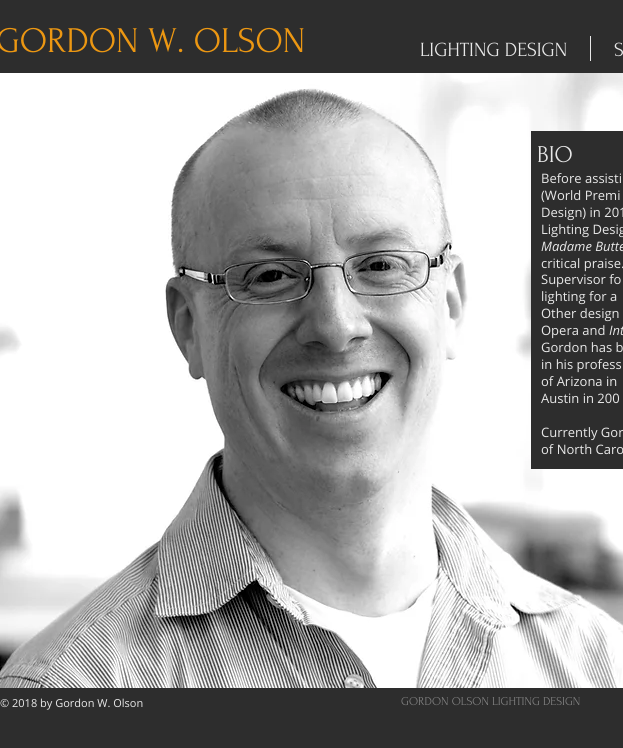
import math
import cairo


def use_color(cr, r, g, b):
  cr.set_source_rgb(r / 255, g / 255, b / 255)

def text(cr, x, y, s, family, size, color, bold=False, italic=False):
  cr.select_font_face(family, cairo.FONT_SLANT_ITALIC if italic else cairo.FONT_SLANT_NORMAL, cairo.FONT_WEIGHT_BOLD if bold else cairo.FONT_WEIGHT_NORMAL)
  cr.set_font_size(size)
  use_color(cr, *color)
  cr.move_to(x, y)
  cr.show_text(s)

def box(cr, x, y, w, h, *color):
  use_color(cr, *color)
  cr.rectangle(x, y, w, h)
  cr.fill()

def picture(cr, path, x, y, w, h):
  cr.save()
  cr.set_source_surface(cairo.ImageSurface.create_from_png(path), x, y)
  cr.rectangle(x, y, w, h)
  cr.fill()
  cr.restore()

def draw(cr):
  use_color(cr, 45, 45, 45)
  cr.paint()
  box(cr, 590, 36, 1, 25, 232, 232, 232)
  picture(cr, "img_01.png", 0, 73, 623, 615)
  box(cr, 531, 131, 92, 338, 45, 45, 45)
  text(cr, -4, 52, "GORDON W. OLSON", "Forum", 36, (236, 151, 18))
  text(cr, 420, 56, "LIGHTING DESIGN", "Forum", 20, (232, 232, 232))
  text(cr, 614, 56, "S", "Forum", 20, (232, 232, 232))
  text(cr, 537, 162, "BIO", "Forum", 24, (232, 232, 232))
  text(cr, 541, 183, "Before assisti", "Open Sans", 13, (232, 232, 232))
  text(cr, 541, 200, "(World Premi", "Open Sans", 13, (232, 232, 232))
  text(cr, 541, 217, "Design) in 201", "Open Sans", 13, (232, 232, 232))
  text(cr, 541, 234, "Lighting Desig", "Open Sans", 13, (232, 232, 232))
  text(cr, 541, 251, "Madame Butte", "Open Sans", 13, (232, 232, 232), italic=True)
  text(cr, 541, 268, "critical praise.", "Open Sans", 13, (232, 232, 232))
  text(cr, 541, 284, "Supervisor fo", "Open Sans", 13, (232, 232, 232))
  text(cr, 541, 301, "lighting for a", "Open Sans", 13, (232, 232, 232))
  text(cr, 541, 318, "Other design", "Open Sans", 13, (232, 232, 232))
  text(cr, 541, 335, "Opera and", "Open Sans", 13, (232, 232, 232))
  text(cr, 609, 335, "Int", "Open Sans", 13, (232, 232, 232), italic=True)
  text(cr, 541, 352, "Gordon has b", "Open Sans", 13, (232, 232, 232))
  text(cr, 541, 369, "in his profess", "Open Sans", 13, (232, 232, 232))
  text(cr, 541, 386, "of Arizona in", "Open Sans", 13, (232, 232, 232))
  text(cr, 541, 403, "Austin in 200", "Open Sans", 13, (232, 232, 232))
  text(cr, 541, 437, "Currently Gor", "Open Sans", 13, (232, 232, 232))
  text(cr, 541, 454, "of North Caro", "Open Sans", 13, (232, 232, 232))
  text(cr, 0, 707, "© 2018 by Gordon W. Olson", "Open Sans", 11, (232, 232, 232))
  text(cr, 401, 705, "GORDON OLSON LIGHTING DESIGN", "Forum", 12, (129, 129, 129))


surface = cairo.ImageSurface(cairo.FORMAT_RGB24, 623, 748)
cr = cairo.Context(surface)
options = cairo.FontOptions()
options.set_hint_metrics(cairo.HINT_METRICS_OFF)
options.set_hint_style(cairo.HINT_STYLE_NONE)
cr.set_font_options(options)
cr.set_miter_limit(4)
draw(cr)
surface.write_to_png("out.png")
